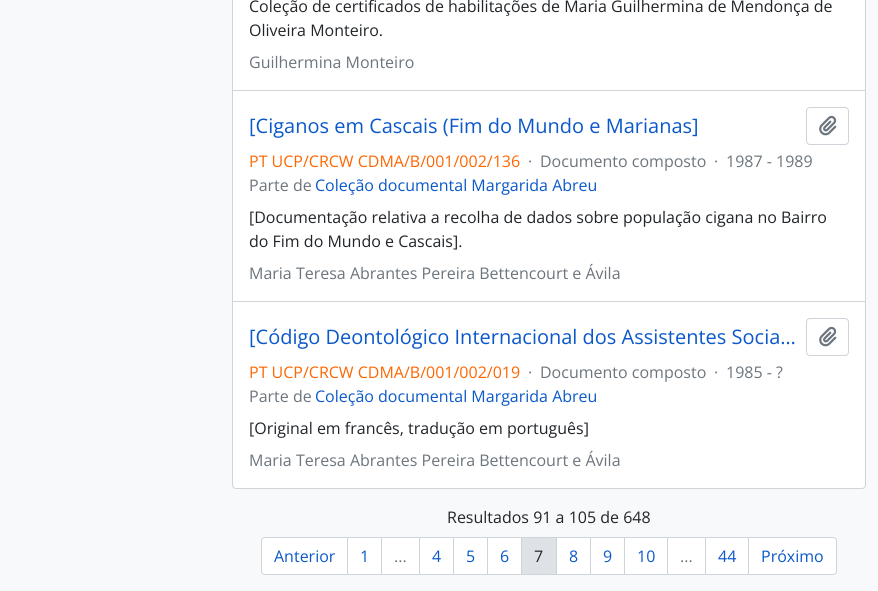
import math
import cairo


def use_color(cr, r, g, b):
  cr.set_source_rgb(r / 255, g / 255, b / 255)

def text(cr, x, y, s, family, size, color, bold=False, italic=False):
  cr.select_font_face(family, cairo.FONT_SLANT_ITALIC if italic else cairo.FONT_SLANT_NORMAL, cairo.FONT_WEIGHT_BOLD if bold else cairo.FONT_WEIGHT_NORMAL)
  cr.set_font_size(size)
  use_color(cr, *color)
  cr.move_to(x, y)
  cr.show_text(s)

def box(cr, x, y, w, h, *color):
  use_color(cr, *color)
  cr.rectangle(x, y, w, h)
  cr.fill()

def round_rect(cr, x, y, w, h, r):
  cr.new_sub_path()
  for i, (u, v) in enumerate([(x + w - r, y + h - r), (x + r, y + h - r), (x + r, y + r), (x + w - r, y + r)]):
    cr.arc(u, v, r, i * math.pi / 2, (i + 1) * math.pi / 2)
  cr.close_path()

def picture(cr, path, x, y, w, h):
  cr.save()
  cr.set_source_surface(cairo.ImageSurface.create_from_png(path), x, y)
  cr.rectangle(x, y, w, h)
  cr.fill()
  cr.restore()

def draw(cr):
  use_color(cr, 248, 249, 250)
  cr.paint()
  use_color(cr, 255, 255, 255)
  round_rect(cr, 232.5, -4.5, 633, 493, 3.5)
  cr.fill_preserve()
  use_color(cr, 206, 212, 218)
  cr.set_line_width(1)
  cr.stroke()
  box(cr, 233, 90, 632, 1, 206, 212, 218)
  box(cr, 233, 301, 632, 1, 206, 212, 218)
  round_rect(cr, 806.5, 107.5, 42, 37, 3.5)
  cr.stroke()
  picture(cr, "img_01.png", 819, 115, 18, 21)
  round_rect(cr, 806.5, 318.5, 42, 37, 3.5)
  cr.stroke()
  picture(cr, "img_01.png", 819, 326, 18, 21)
  use_color(cr, 255, 255, 255)
  cr.new_path()
  cr.move_to(265, 537.5)
  cr.line_to(347.5, 537.5)
  cr.line_to(347.5, 574.5)
  cr.line_to(265, 574.5)
  cr.curve_to(263, 574.5, 261.5, 573, 261.5, 571)
  cr.line_to(261.5, 541)
  cr.curve_to(261.5, 539, 263, 537.5, 265, 537.5)
  cr.close_path()
  cr.fill_preserve()
  use_color(cr, 206, 212, 218)
  cr.stroke()
  use_color(cr, 255, 255, 255)
  cr.rectangle(347.5, 537.5, 34, 37)
  cr.fill_preserve()
  use_color(cr, 206, 212, 218)
  cr.stroke()
  use_color(cr, 255, 255, 255)
  cr.rectangle(381.5, 537.5, 38, 37)
  cr.fill_preserve()
  use_color(cr, 206, 212, 218)
  cr.stroke()
  use_color(cr, 255, 255, 255)
  cr.rectangle(419.5, 537.5, 34, 37)
  cr.fill_preserve()
  use_color(cr, 206, 212, 218)
  cr.stroke()
  use_color(cr, 255, 255, 255)
  cr.rectangle(453.5, 537.5, 34, 37)
  cr.fill_preserve()
  use_color(cr, 206, 212, 218)
  cr.stroke()
  use_color(cr, 255, 255, 255)
  cr.rectangle(487.5, 537.5, 34, 37)
  cr.fill_preserve()
  use_color(cr, 206, 212, 218)
  cr.stroke()
  use_color(cr, 255, 255, 255)
  cr.rectangle(556.5, 537.5, 34, 37)
  cr.fill_preserve()
  use_color(cr, 206, 212, 218)
  cr.stroke()
  use_color(cr, 222, 226, 230)
  cr.rectangle(521.5, 537.5, 35, 37)
  cr.fill_preserve()
  use_color(cr, 206, 212, 218)
  cr.stroke()
  use_color(cr, 255, 255, 255)
  cr.rectangle(590.5, 537.5, 34, 37)
  cr.fill_preserve()
  use_color(cr, 206, 212, 218)
  cr.stroke()
  use_color(cr, 255, 255, 255)
  cr.rectangle(624.5, 537.5, 43, 37)
  cr.fill_preserve()
  use_color(cr, 206, 212, 218)
  cr.stroke()
  use_color(cr, 255, 255, 255)
  cr.rectangle(667.5, 537.5, 38, 37)
  cr.fill_preserve()
  use_color(cr, 206, 212, 218)
  cr.stroke()
  use_color(cr, 255, 255, 255)
  cr.rectangle(705.5, 537.5, 43, 37)
  cr.fill_preserve()
  use_color(cr, 206, 212, 218)
  cr.stroke()
  use_color(cr, 255, 255, 255)
  cr.new_path()
  cr.move_to(748.5, 537.5)
  cr.line_to(833, 537.5)
  cr.curve_to(835, 537.5, 836.5, 539, 836.5, 541)
  cr.line_to(836.5, 571)
  cr.curve_to(836.5, 573, 835, 574.5, 833, 574.5)
  cr.line_to(748.5, 574.5)
  cr.close_path()
  cr.fill_preserve()
  use_color(cr, 206, 212, 218)
  cr.stroke()
  text(cr, 249, 12, "Coleção de certificados de habilitações de Maria Guilhermina de Mendonça de", "Open Sans", 16, (33, 37, 41))
  text(cr, 249, 36, "Oliveira Monteiro.", "Open Sans", 16, (33, 37, 41))
  text(cr, 249, 68, "Guilhermina Monteiro", "Open Sans", 16, (108, 117, 125))
  text(cr, 249, 133, "[Ciganos em Cascais (Fim do Mundo e Marianas]", "Open Sans", 20, (10, 88, 202))
  text(cr, 249, 167, "PT UCP/CRCW CDMA/B/001/002/136", "Open Sans", 16, (255, 102, 0))
  text(cr, 528, 167, "·", "Open Sans", 16, (108, 117, 125))
  text(cr, 540, 167, "Documento composto", "Open Sans", 16, (108, 117, 125))
  text(cr, 714, 167, "·", "Open Sans", 16, (108, 117, 125))
  text(cr, 726, 167, "1987 - 1989", "Open Sans", 16, (108, 117, 125))
  text(cr, 249, 191, "Parte de", "Open Sans", 16, (108, 117, 125))
  text(cr, 315, 191, "Coleção documental Margarida Abreu", "Open Sans", 16, (10, 88, 202))
  text(cr, 249, 223, "[Documentação relativa a recolha de dados sobre população cigana no Bairro", "Open Sans", 16, (33, 37, 41))
  text(cr, 249, 247, "do Fim do Mundo e Cascais].", "Open Sans", 16, (33, 37, 41))
  text(cr, 249, 279, "Maria Teresa Abrantes Pereira Bettencourt e Ávila", "Open Sans", 16, (108, 117, 125))
  text(cr, 249, 344, "[Código Deontológico Internacional dos Assistentes Socia…", "Open Sans", 20, (10, 88, 202))
  text(cr, 249, 378, "PT UCP/CRCW CDMA/B/001/002/019", "Open Sans", 16, (255, 102, 0))
  text(cr, 528, 378, "·", "Open Sans", 16, (108, 117, 125))
  text(cr, 540, 378, "Documento composto", "Open Sans", 16, (108, 117, 125))
  text(cr, 714, 378, "·", "Open Sans", 16, (108, 117, 125))
  text(cr, 726, 378, "1985 - ?", "Open Sans", 16, (108, 117, 125))
  text(cr, 249, 402, "Parte de", "Open Sans", 16, (108, 117, 125))
  text(cr, 315, 402, "Coleção documental Margarida Abreu", "Open Sans", 16, (10, 88, 202))
  text(cr, 249, 434, "[Original em francês, tradução em português]", "Open Sans", 16, (33, 37, 41))
  text(cr, 249, 466, "Maria Teresa Abrantes Pereira Bettencourt e Ávila", "Open Sans", 16, (108, 117, 125))
  text(cr, 447, 523, "Resultados 91 a 105 de 648", "Open Sans", 16, (33, 37, 41))
  text(cr, 274, 562, "Anterior", "Open Sans", 16, (10, 88, 202))
  text(cr, 360, 562, "1", "Open Sans", 16, (10, 88, 202))
  text(cr, 394, 562, "...", "Open Sans", 16, (108, 117, 125))
  text(cr, 432, 562, "4", "Open Sans", 16, (10, 88, 202))
  text(cr, 466, 562, "5", "Open Sans", 16, (10, 88, 202))
  text(cr, 500, 562, "6", "Open Sans", 16, (10, 88, 202))
  text(cr, 534, 562, "7", "Open Sans", 16, (33, 37, 41))
  text(cr, 569, 562, "8", "Open Sans", 16, (10, 88, 202))
  text(cr, 603, 562, "9", "Open Sans", 16, (10, 88, 202))
  text(cr, 637, 562, "10", "Open Sans", 16, (10, 88, 202))
  text(cr, 680, 562, "...", "Open Sans", 16, (108, 117, 125))
  text(cr, 718, 562, "44", "Open Sans", 16, (10, 88, 202))
  text(cr, 761, 562, "Próximo", "Open Sans", 16, (10, 88, 202))


surface = cairo.ImageSurface(cairo.FORMAT_RGB24, 878, 591)
cr = cairo.Context(surface)
options = cairo.FontOptions()
options.set_hint_metrics(cairo.HINT_METRICS_OFF)
options.set_hint_style(cairo.HINT_STYLE_NONE)
cr.set_font_options(options)
cr.set_miter_limit(4)
draw(cr)
surface.write_to_png("out.png")
